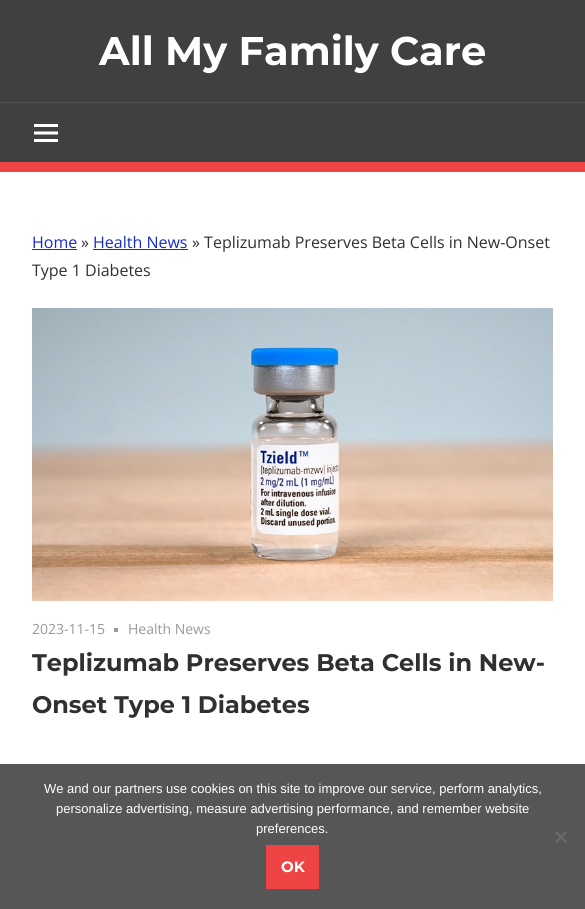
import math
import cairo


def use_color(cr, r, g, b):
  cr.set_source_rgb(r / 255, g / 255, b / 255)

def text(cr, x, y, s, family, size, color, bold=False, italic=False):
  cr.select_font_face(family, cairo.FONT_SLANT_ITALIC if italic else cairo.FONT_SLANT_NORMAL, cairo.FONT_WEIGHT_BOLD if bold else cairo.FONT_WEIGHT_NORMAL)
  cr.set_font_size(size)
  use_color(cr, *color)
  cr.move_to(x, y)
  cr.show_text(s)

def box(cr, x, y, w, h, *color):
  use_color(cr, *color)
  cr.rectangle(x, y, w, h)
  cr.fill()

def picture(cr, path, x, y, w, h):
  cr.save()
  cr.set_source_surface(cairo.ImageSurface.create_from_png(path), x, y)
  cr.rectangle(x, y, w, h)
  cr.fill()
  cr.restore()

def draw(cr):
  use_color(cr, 64, 64, 64)
  cr.paint()
  box(cr, 0, 162, 585, 10, 238, 68, 68)
  box(cr, 0, 102, 585, 1, 83, 83, 83)
  picture(cr, "img_01.png", 34, 124, 24, 18)
  box(cr, 0, 172, 585, 592, 255, 255, 255)
  box(cr, 32, 249, 45, 1, 23, 44, 201)
  box(cr, 93, 249, 95, 1, 23, 44, 201)
  picture(cr, "img_02.png", 32, 308, 521, 293)
  box(cr, 114, 628, 4, 4, 153, 153, 153)
  box(cr, 0, 764, 585, 145, 86, 86, 86)
  use_color(cr, 107, 107, 107)
  cr.new_path()
  cr.move_to(565.5, 831)
  cr.line_to(567, 832.5)
  cr.line_to(556.5, 843)
  cr.line_to(555, 841.5)
  cr.close_path()
  cr.fill()
  cr.new_path()
  cr.move_to(555, 832.5)
  cr.line_to(556.5, 831)
  cr.line_to(567, 841.5)
  cr.line_to(565.5, 843)
  cr.close_path()
  cr.fill()
  box(cr, 266, 845, 53, 44, 238, 68, 68)
  text(cr, 99, 65, "All My Family Care", "Montserrat", 40, (255, 255, 255), bold=True)
  text(cr, 32, 248, "Home", "Open Sans", 16, (23, 44, 201))
  text(cr, 81, 248, "»", "Open Sans", 16, (48, 48, 48))
  text(cr, 93, 248, "Health News", "Open Sans", 16, (23, 44, 201))
  text(cr, 192, 248, "» Teplizumab Preserves Beta Cells in New-Onset", "Open Sans", 16, (48, 48, 48))
  text(cr, 32, 276, "Type 1 Diabetes", "Open Sans", 16, (48, 48, 48))
  text(cr, 32, 634, "2023-11-15", "Open Sans", 14, (153, 153, 153))
  text(cr, 128, 634, "Health News", "Open Sans", 14, (153, 153, 153))
  text(cr, 32, 671, "Teplizumab Preserves Beta Cells in New-", "Montserrat", 24, (48, 48, 48), bold=True)
  text(cr, 32, 713, "Onset Type 1 Diabetes", "Montserrat", 24, (48, 48, 48), bold=True)
  text(cr, 44, 793, "We and our partners use cookies on this site to improve our service, perform analytics,", "Liberation Sans", 13, (255, 255, 255))
  text(cr, 56, 813, "personalize advertising, measure advertising performance, and remember website", "Liberation Sans", 13, (255, 255, 255))
  text(cr, 256, 833, "preferences.", "Liberation Sans", 13, (255, 255, 255))
  text(cr, 281, 872, "OK", "Montserrat", 15, (255, 255, 255), bold=True)


surface = cairo.ImageSurface(cairo.FORMAT_RGB24, 585, 909)
cr = cairo.Context(surface)
options = cairo.FontOptions()
options.set_hint_metrics(cairo.HINT_METRICS_OFF)
options.set_hint_style(cairo.HINT_STYLE_NONE)
cr.set_font_options(options)
cr.set_miter_limit(4)
draw(cr)
surface.write_to_png("out.png")
